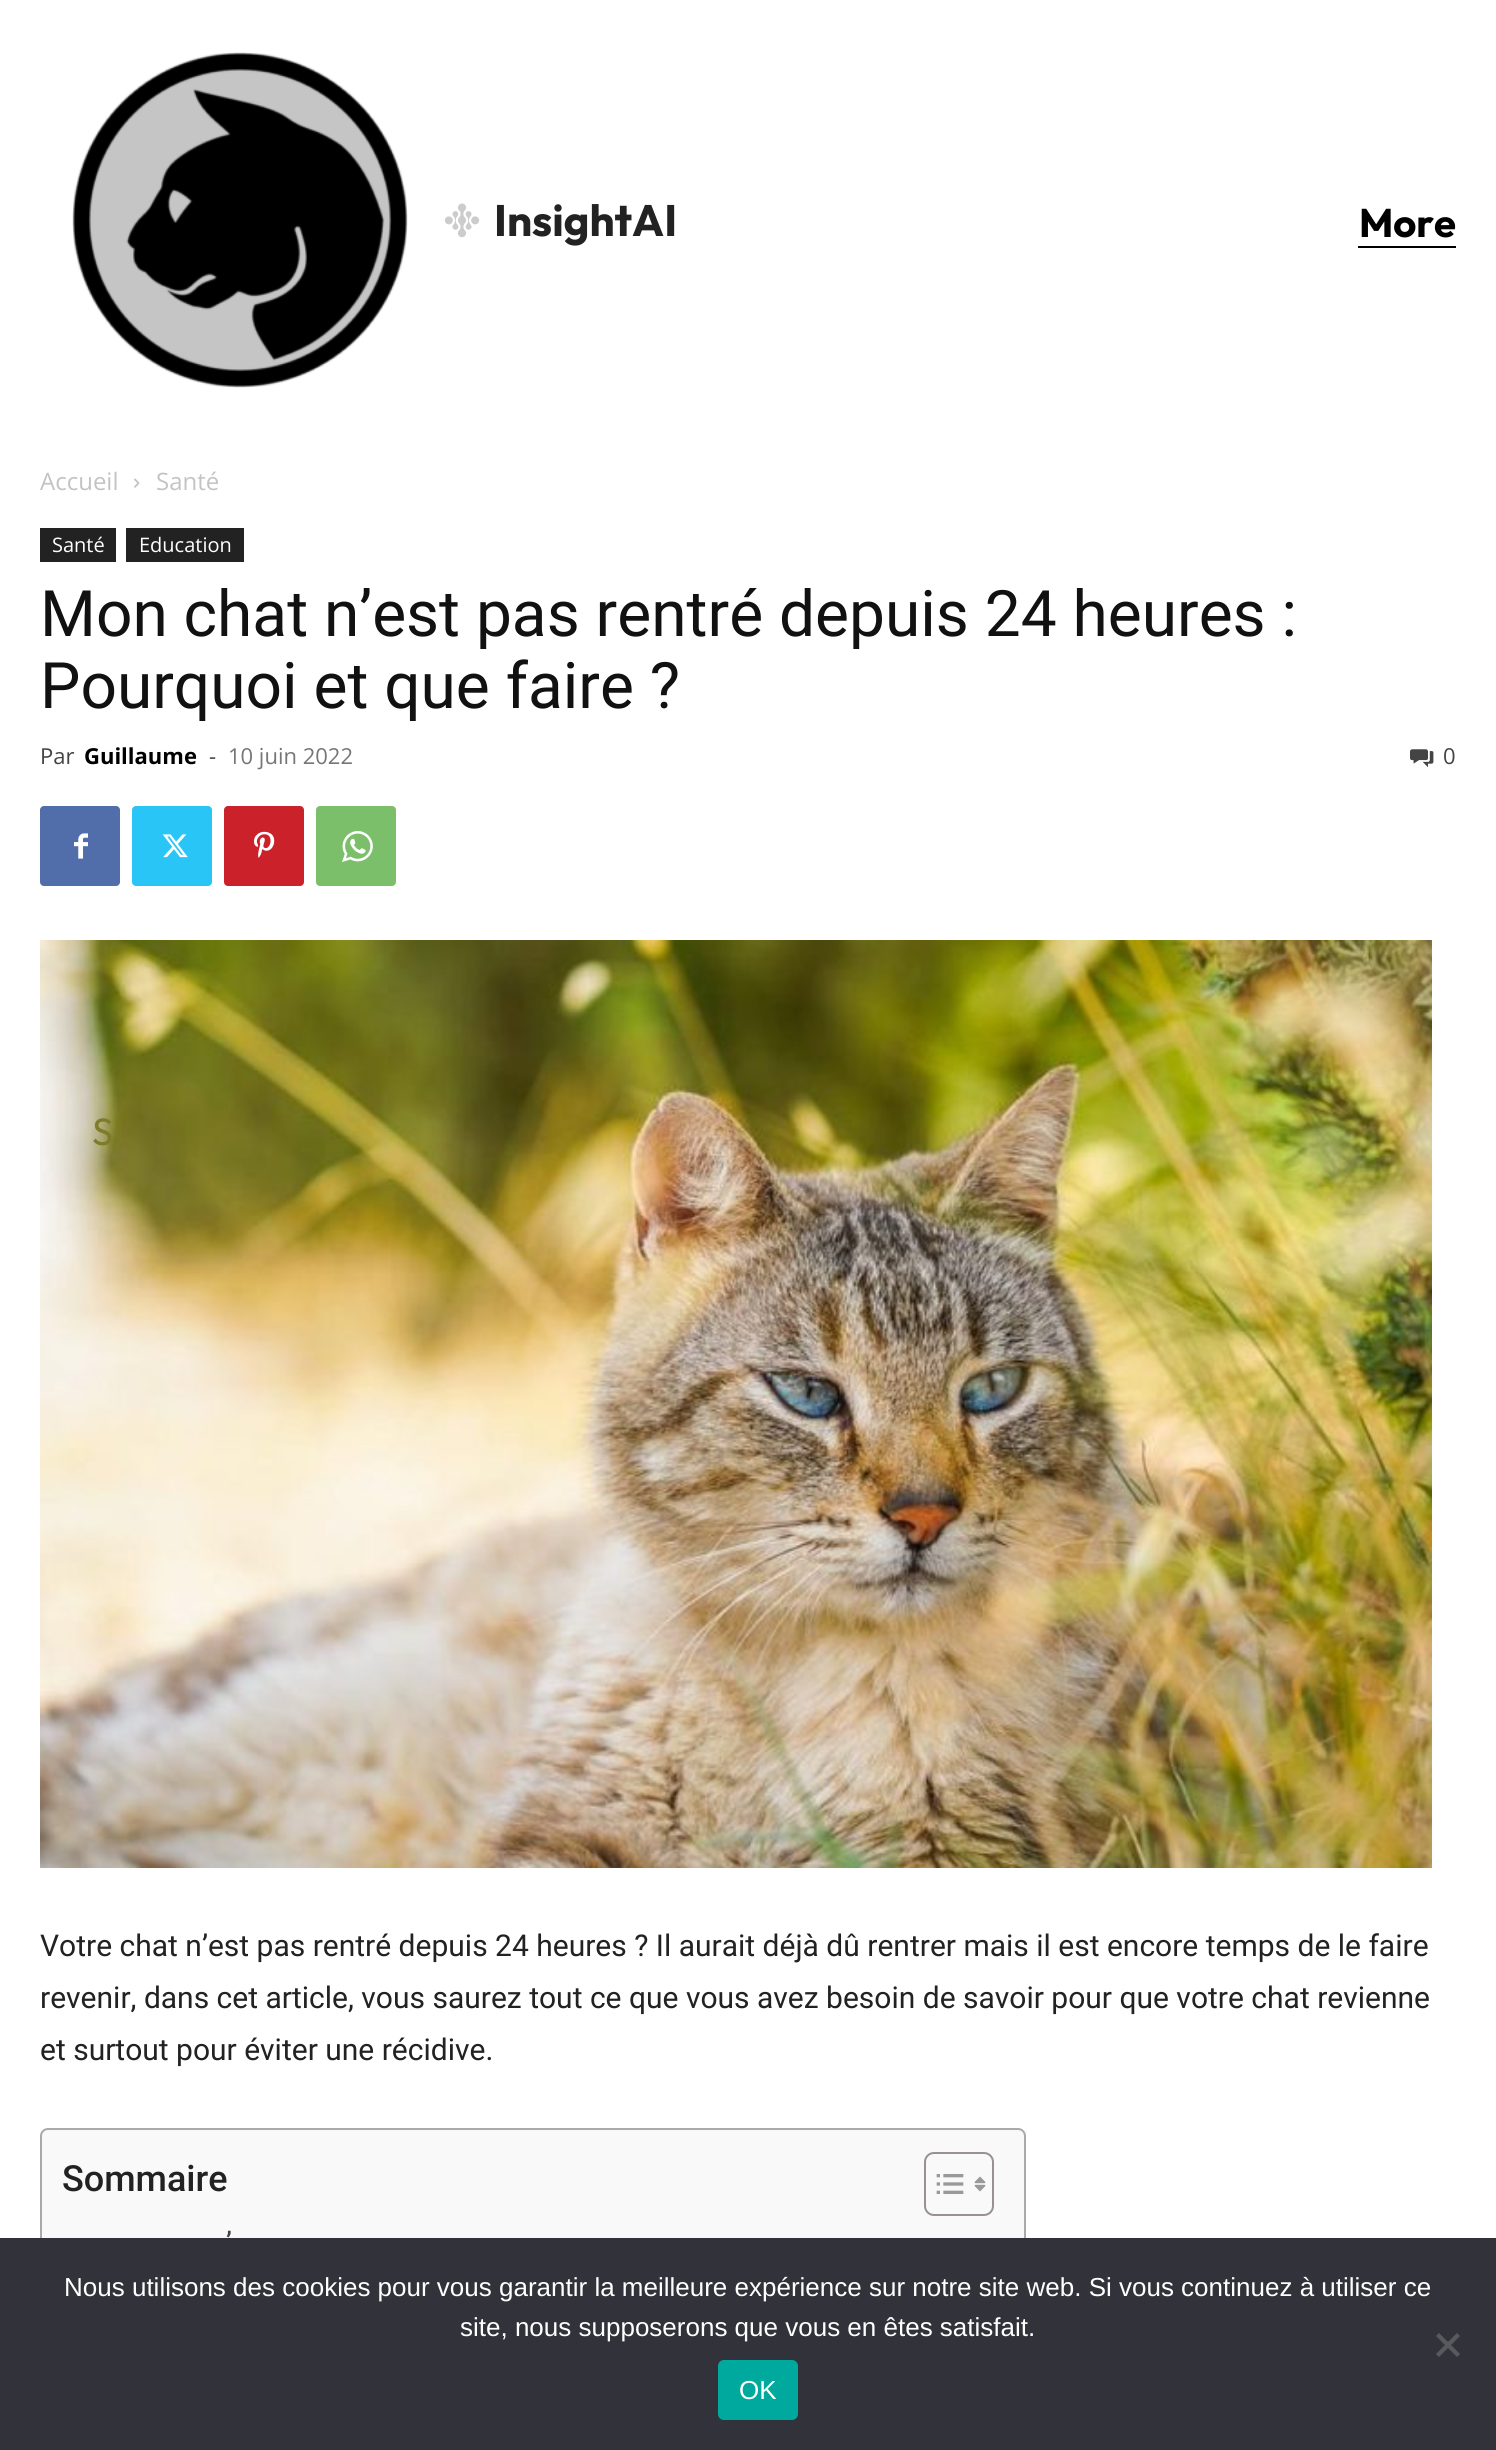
import math
import cairo


def use_color(cr, r, g, b):
  cr.set_source_rgb(r / 255, g / 255, b / 255)

def text(cr, x, y, s, family, size, color, bold=False, italic=False):
  cr.select_font_face(family, cairo.FONT_SLANT_ITALIC if italic else cairo.FONT_SLANT_NORMAL, cairo.FONT_WEIGHT_BOLD if bold else cairo.FONT_WEIGHT_NORMAL)
  cr.set_font_size(size)
  use_color(cr, *color)
  cr.move_to(x, y)
  cr.show_text(s)

def box(cr, x, y, w, h, *color):
  use_color(cr, *color)
  cr.rectangle(x, y, w, h)
  cr.fill()

def round_rect(cr, x, y, w, h, r):
  cr.new_sub_path()
  for i, (u, v) in enumerate([(x + w - r, y + h - r), (x + r, y + h - r), (x + r, y + r), (x + w - r, y + r)]):
    cr.arc(u, v, r, i * math.pi / 2, (i + 1) * math.pi / 2)
  cr.close_path()

def picture(cr, path, x, y, w, h):
  cr.save()
  cr.set_source_surface(cairo.ImageSurface.create_from_png(path), x, y)
  cr.rectangle(x, y, w, h)
  cr.fill()
  cr.restore()

def draw(cr):
  use_color(cr, 255, 255, 255)
  cr.paint()
  picture(cr, "img_01.png", 72, 52, 336, 336)
  picture(cr, "img_02.png", 444, 203, 36, 35)
  box(cr, 1358, 246, 98, 2, 0, 0, 0)
  picture(cr, "img_03.png", 134, 478, 6, 10)
  box(cr, 40, 528, 76, 34, 34, 34, 34)
  box(cr, 126, 528, 118, 34, 34, 34, 34)
  picture(cr, "img_04.png", 1410, 749, 24, 19)
  use_color(cr, 81, 110, 171)
  round_rect(cr, 40, 806, 80, 80, 4)
  cr.fill()
  picture(cr, "img_05.png", 74, 833, 14, 26)
  use_color(cr, 41, 197, 246)
  round_rect(cr, 132, 806, 80, 80, 4)
  cr.fill()
  picture(cr, "img_06.png", 162, 834, 26, 24)
  use_color(cr, 202, 33, 42)
  round_rect(cr, 224, 806, 80, 80, 4)
  cr.fill()
  picture(cr, "img_07.png", 254, 831, 21, 27)
  use_color(cr, 123, 191, 106)
  round_rect(cr, 316, 806, 80, 80, 4)
  cr.fill()
  picture(cr, "img_08.png", 342, 831, 31, 31)
  picture(cr, "img_09.png", 40, 940, 1392, 928)
  use_color(cr, 249, 249, 249)
  round_rect(cr, 41, 2129, 984, 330, 7)
  cr.fill_preserve()
  use_color(cr, 170, 170, 170)
  cr.stroke()
  round_rect(cr, 925, 2153, 68, 62, 9)
  use_color(cr, 153, 145, 145)
  cr.stroke()
  picture(cr, "img_10.png", 936, 2174, 28, 20)
  picture(cr, "img_11.png", 974, 2176, 12, 16)
  box(cr, 0, 2238, 1496, 212, 50, 50, 58)
  use_color(cr, 89, 89, 93)
  cr.new_path()
  cr.move_to(1457, 2333)
  cr.line_to(1460, 2336)
  cr.line_to(1439, 2357)
  cr.line_to(1436, 2354)
  cr.close_path()
  cr.fill()
  cr.new_path()
  cr.move_to(1436, 2336)
  cr.line_to(1439, 2333)
  cr.line_to(1460, 2354)
  cr.line_to(1457, 2357)
  cr.close_path()
  cr.fill()
  use_color(cr, 0, 169, 157)
  round_rect(cr, 718, 2360, 80, 60, 6)
  cr.fill()
  text(cr, 494, 236, "InsightAI", "Outfit", 44, (34, 34, 34), bold=True)
  text(cr, 1359, 237, "More", "Outfit", 40, (0, 0, 0), bold=True)
  text(cr, 40, 490, "Accueil", "Open Sans", 24, (195, 195, 195))
  text(cr, 156, 490, "Santé", "Open Sans", 24, (195, 195, 195))
  text(cr, 52, 552, "Santé", "Open Sans", 20, (255, 255, 255))
  text(cr, 139, 552, "Education", "Open Sans", 20, (255, 255, 255))
  text(cr, 40, 636, "Mon chat n’est pas rentré depuis 24 heures :", "Roboto", 64, (17, 17, 17))
  text(cr, 40, 708, "Pourquoi et que faire ?", "Roboto", 64, (17, 17, 17))
  text(cr, 40, 764, "Par", "Open Sans", 22, (68, 68, 68))
  text(cr, 84, 764, "Guillaume", "Open Sans", 22, (0, 0, 0), bold=True)
  text(cr, 209, 764, "-", "Open Sans", 22, (68, 68, 68))
  text(cr, 228, 764, "10 juin 2022", "Open Sans", 22, (118, 118, 118))
  text(cr, 1443, 764, "0", "Open Sans", 22, (68, 68, 68))
  text(cr, 40, 1956, "Votre chat n’est pas rentré depuis 24 heures ? Il aurait déjà dû rentrer mais il est encore temps de le faire", "Roboto", 30, (34, 34, 34))
  text(cr, 40, 2008, "revenir, dans cet article, vous saurez tout ce que vous avez besoin de savoir pour que votre chat revienne", "Roboto", 30, (34, 34, 34))
  text(cr, 40, 2060, "et surtout pour éviter une récidive.", "Roboto", 30, (34, 34, 34))
  text(cr, 62, 2191, "Sommaire", "Roboto Medium", 36, (34, 34, 34))
  text(cr, 226, 2251, "’", "Roboto Medium", 27, (68, 68, 68))
  text(cr, 92, 1145, "S", "Outfit", 38, (126, 123, 43))
  text(cr, 64, 2296, "Nous utilisons des cookies pour vous garantir la meilleure expérience sur notre site web. Si vous continuez à utiliser ce", "Liberation Sans", 26, (255, 255, 255))
  text(cr, 460, 2336, "site, nous supposerons que vous en êtes satisfait.", "Liberation Sans", 26, (255, 255, 255))
  text(cr, 739, 2399, "OK", "Liberation Sans", 26, (255, 255, 255))


surface = cairo.ImageSurface(cairo.FORMAT_RGB24, 1496, 2450)
cr = cairo.Context(surface)
options = cairo.FontOptions()
options.set_hint_metrics(cairo.HINT_METRICS_OFF)
options.set_hint_style(cairo.HINT_STYLE_NONE)
cr.set_font_options(options)
cr.set_miter_limit(4)
draw(cr)
surface.write_to_png("out.png")
